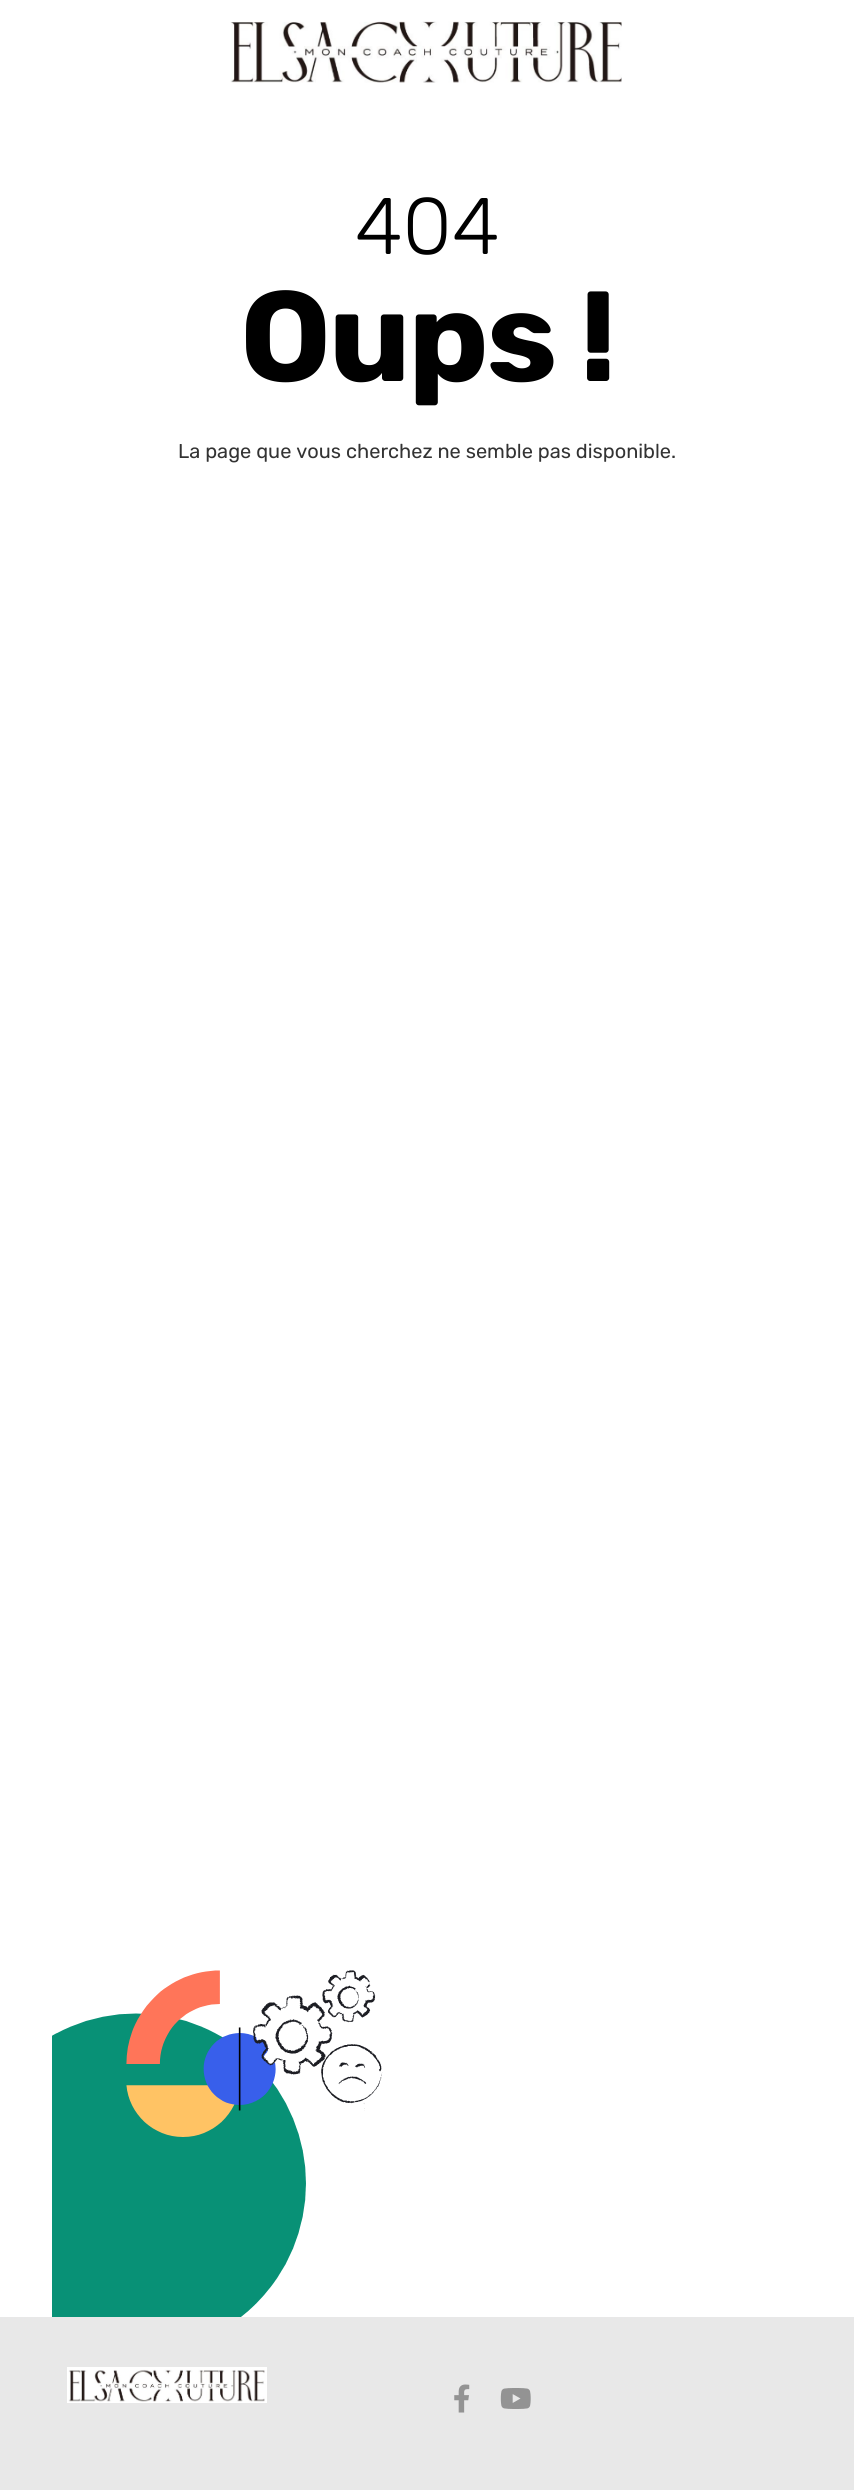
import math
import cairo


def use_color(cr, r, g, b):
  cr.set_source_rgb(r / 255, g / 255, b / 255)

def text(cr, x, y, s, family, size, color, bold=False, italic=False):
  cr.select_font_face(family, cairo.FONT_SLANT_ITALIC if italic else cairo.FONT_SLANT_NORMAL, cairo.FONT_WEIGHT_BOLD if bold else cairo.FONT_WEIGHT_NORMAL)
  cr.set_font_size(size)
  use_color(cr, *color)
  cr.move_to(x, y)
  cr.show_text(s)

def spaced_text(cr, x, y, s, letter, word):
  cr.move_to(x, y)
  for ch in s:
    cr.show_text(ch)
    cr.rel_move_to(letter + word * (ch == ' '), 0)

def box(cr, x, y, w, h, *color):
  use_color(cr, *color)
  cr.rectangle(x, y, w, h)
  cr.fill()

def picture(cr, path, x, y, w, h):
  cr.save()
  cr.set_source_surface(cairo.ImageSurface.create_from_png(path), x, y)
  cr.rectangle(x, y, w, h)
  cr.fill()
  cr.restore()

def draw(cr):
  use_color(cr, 255, 255, 255)
  cr.paint()
  picture(cr, "img_01.png", 230, 21, 392, 62)
  picture(cr, "img_02.png", 52, 1970, 331, 347)
  box(cr, 0, 2317, 854, 173, 232, 232, 232)
  picture(cr, "img_03.png", 67, 2367, 200, 36)
  picture(cr, "img_04.png", 454, 2384, 16, 29)
  picture(cr, "img_05.png", 500, 2388, 31, 21)
  text(cr, 355, 254, "404", "Rubik Light", 80, (0, 0, 0))
  cr.select_font_face("Rubik", cairo.FONT_SLANT_NORMAL, cairo.FONT_WEIGHT_BOLD)
  cr.set_font_size(128)
  spaced_text(cr, 240, 381, "Oups !", -2.5, 0)
  text(cr, 178, 458, "La page que vous cherchez ne semble pas disponible.", "Rubik", 20, (51, 51, 51))


surface = cairo.ImageSurface(cairo.FORMAT_RGB24, 854, 2490)
cr = cairo.Context(surface)
options = cairo.FontOptions()
options.set_hint_metrics(cairo.HINT_METRICS_OFF)
options.set_hint_style(cairo.HINT_STYLE_NONE)
cr.set_font_options(options)
cr.set_miter_limit(4)
draw(cr)
surface.write_to_png("out.png")
